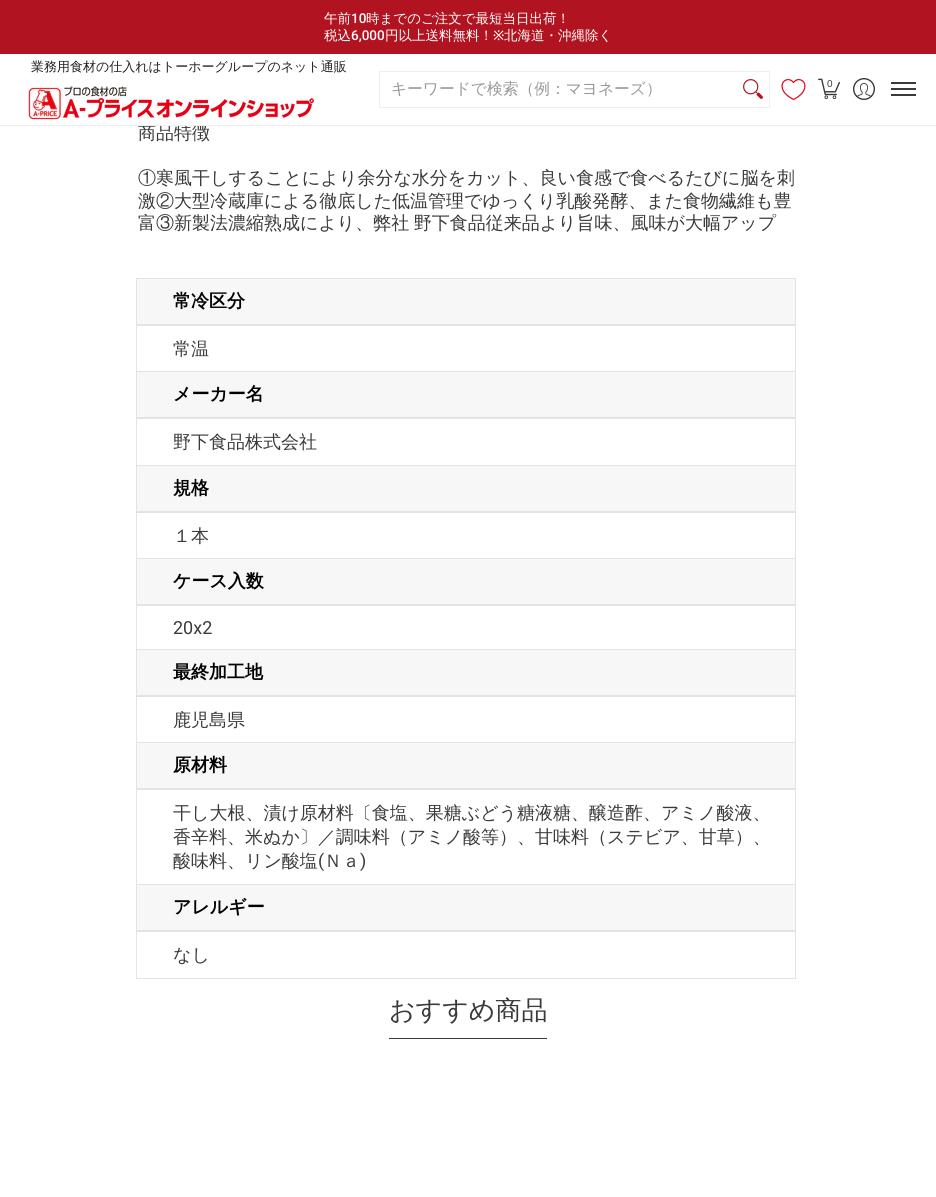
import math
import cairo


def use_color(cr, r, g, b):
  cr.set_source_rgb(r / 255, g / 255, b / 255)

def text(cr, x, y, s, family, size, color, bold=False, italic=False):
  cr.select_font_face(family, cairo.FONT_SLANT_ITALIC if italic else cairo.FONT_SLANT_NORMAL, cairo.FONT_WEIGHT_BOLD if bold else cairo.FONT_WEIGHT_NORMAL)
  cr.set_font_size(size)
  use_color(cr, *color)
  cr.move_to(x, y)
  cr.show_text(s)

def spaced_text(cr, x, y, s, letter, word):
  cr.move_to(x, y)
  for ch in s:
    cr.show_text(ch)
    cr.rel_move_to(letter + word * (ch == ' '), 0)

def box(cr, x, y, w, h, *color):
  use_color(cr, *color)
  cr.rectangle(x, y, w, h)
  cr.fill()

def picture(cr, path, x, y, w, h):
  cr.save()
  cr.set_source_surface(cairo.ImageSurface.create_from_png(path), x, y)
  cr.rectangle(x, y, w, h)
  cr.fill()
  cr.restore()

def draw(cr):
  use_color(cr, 255, 255, 255)
  cr.paint()
  box(cr, 0, 0, 936, 54, 177, 20, 32)
  picture(cr, "img_01.png", 28, 86, 286, 34)
  cr.rectangle(379.5, 71.5, 390, 36)
  use_color(cr, 239, 239, 239)
  cr.set_line_width(1)
  cr.stroke()
  picture(cr, "img_02.png", 743, 79, 20, 20)
  picture(cr, "img_03.png", 781, 79, 25, 21)
  picture(cr, "img_04.png", 818, 78, 22, 22)
  picture(cr, "img_05.png", 853, 78, 22, 22)
  box(cr, 891, 82, 25, 2, 58, 58, 58)
  box(cr, 891, 94, 25, 2, 58, 58, 58)
  box(cr, 891, 88, 25, 2, 58, 58, 58)
  use_color(cr, 247, 247, 247)
  cr.rectangle(136.5, 278.5, 659, 46)
  cr.fill_preserve()
  use_color(cr, 227, 227, 227)
  cr.stroke()
  cr.rectangle(136.5, 325.5, 659, 47)
  cr.stroke()
  use_color(cr, 247, 247, 247)
  cr.rectangle(136.5, 371.5, 659, 46)
  cr.fill_preserve()
  use_color(cr, 227, 227, 227)
  cr.stroke()
  cr.rectangle(136.5, 418.5, 659, 48)
  cr.stroke()
  use_color(cr, 247, 247, 247)
  cr.rectangle(136.5, 465.5, 659, 46)
  cr.fill_preserve()
  use_color(cr, 227, 227, 227)
  cr.stroke()
  cr.rectangle(136.5, 512.5, 659, 47)
  cr.stroke()
  use_color(cr, 247, 247, 247)
  cr.rectangle(136.5, 558.5, 659, 46)
  cr.fill_preserve()
  use_color(cr, 227, 227, 227)
  cr.stroke()
  cr.rectangle(136.5, 605.5, 659, 45)
  cr.stroke()
  use_color(cr, 247, 247, 247)
  cr.rectangle(136.5, 649.5, 659, 46)
  cr.fill_preserve()
  use_color(cr, 227, 227, 227)
  cr.stroke()
  cr.rectangle(136.5, 696.5, 659, 47)
  cr.stroke()
  use_color(cr, 247, 247, 247)
  cr.rectangle(136.5, 742.5, 659, 46)
  cr.fill_preserve()
  use_color(cr, 227, 227, 227)
  cr.stroke()
  cr.rectangle(136.5, 789.5, 659, 96)
  cr.stroke()
  use_color(cr, 247, 247, 247)
  cr.rectangle(136.5, 884.5, 659, 46)
  cr.fill_preserve()
  use_color(cr, 227, 227, 227)
  cr.stroke()
  cr.rectangle(136.5, 931.5, 659, 47)
  cr.stroke()
  box(cr, 389, 1038, 158, 1, 58, 58, 58)
  text(cr, 324, 23, "午前", "WenQuanYi Zen Hei Medium", 13.5, (255, 255, 255))
  text(cr, 351, 23, "10", "Roboto Medium", 13.5, (255, 255, 255))
  text(cr, 366, 23, "時までのご注文で最短当日出荷！", "WenQuanYi Zen Hei Medium", 13.5, (255, 255, 255))
  text(cr, 324, 40, "税込", "WenQuanYi Zen Hei Medium", 13.5, (255, 255, 255))
  text(cr, 351, 40, "6,000", "Roboto Medium", 13.5, (255, 255, 255))
  text(cr, 385, 40, "円以上送料無料！", "WenQuanYi Zen Hei Medium", 13.5, (255, 255, 255))
  text(cr, 493, 40, "※", "Noto Sans Medium", 13.5, (255, 255, 255))
  text(cr, 504, 40, "北海道・沖縄除く", "WenQuanYi Zen Hei Medium", 13.5, (255, 255, 255))
  text(cr, 31, 71, "業務用食材の仕入れはトーホーグループのネット通販", "WenQuanYi Zen Hei Medium", 13, (33, 33, 33))
  text(cr, 391, 94, "キーワードで検索（例：マヨネーズ）", "WenQuanYi Zen Hei Medium", 15.75, (152, 152, 152))
  text(cr, 827, 87, "0", "Liberation Sans", 10, (58, 58, 58))
  text(cr, 138, 139, "商品特徴", "WenQuanYi Zen Hei Medium", 18, (58, 58, 58))
  box(cr, 0, 125, 936, 1, 239, 239, 239)
  box(cr, 145, 123, 57, 2, 255, 255, 255)
  text(cr, 138, 184, "①寒風干しすることにより余分な水分をカット、良い食感で食べるたびに脳を刺", "WenQuanYi Zen Hei Medium", 18, (58, 58, 58))
  text(cr, 138, 207, "激②大型冷蔵庫による徹底した低温管理でゆっくり乳酸発酵、また食物繊維も豊", "WenQuanYi Zen Hei Medium", 18, (58, 58, 58))
  spaced_text(cr, 138, 229, "富③新製法濃縮熟成により、弊社 野下食品従来品より旨味、風味が大幅アップ", 0, -1)
  text(cr, 173, 307, "常冷区分", "WenQuanYi Zen Hei", 18, (0, 0, 0), bold=True)
  text(cr, 173, 355, "常温", "WenQuanYi Zen Hei Medium", 18, (58, 58, 58))
  text(cr, 173, 400, "メーカー名", "WenQuanYi Zen Hei", 18, (0, 0, 0), bold=True)
  text(cr, 173, 448, "野下食品株式会社", "WenQuanYi Zen Hei Medium", 18, (58, 58, 58))
  text(cr, 173, 494, "規格", "WenQuanYi Zen Hei", 18, (0, 0, 0), bold=True)
  text(cr, 173, 542, "１本", "WenQuanYi Zen Hei Medium", 18, (58, 58, 58))
  text(cr, 173, 587, "ケース入数", "WenQuanYi Zen Hei", 18, (0, 0, 0), bold=True)
  text(cr, 173, 634, "20x2", "Roboto", 18, (58, 58, 58))
  text(cr, 173, 678, "最終加工地", "WenQuanYi Zen Hei", 18, (0, 0, 0), bold=True)
  text(cr, 173, 726, "鹿児島県", "WenQuanYi Zen Hei Medium", 18, (58, 58, 58))
  text(cr, 173, 771, "原材料", "WenQuanYi Zen Hei", 18, (0, 0, 0), bold=True)
  text(cr, 173, 819, "干し大根、漬け原材料〔食塩、果糖ぶどう糖液糖、醸造酢、アミノ酸液、", "WenQuanYi Zen Hei Medium", 18, (58, 58, 58))
  text(cr, 173, 843, "香辛料、米ぬか〕／調味料（アミノ酸等）、甘味料（ステビア、甘草）、", "WenQuanYi Zen Hei Medium", 18, (58, 58, 58))
  text(cr, 173, 867, "酸味料、リン酸塩", "WenQuanYi Zen Hei Medium", 18, (58, 58, 58))
  text(cr, 318, 867, "(", "Roboto", 18, (58, 58, 58))
  text(cr, 324, 867, "Ｎａ", "WenQuanYi Zen Hei Medium", 18, (58, 58, 58))
  text(cr, 360, 867, ")", "Roboto", 18, (58, 58, 58))
  text(cr, 173, 913, "アレルギー", "WenQuanYi Zen Hei", 18, (0, 0, 0), bold=True)
  text(cr, 173, 961, "なし", "WenQuanYi Zen Hei Medium", 18, (58, 58, 58))
  text(cr, 389, 1019, "おすすめ商品", "WenQuanYi Zen Hei Medium", 26, (58, 58, 58))


surface = cairo.ImageSurface(cairo.FORMAT_RGB24, 936, 1197)
cr = cairo.Context(surface)
options = cairo.FontOptions()
options.set_hint_metrics(cairo.HINT_METRICS_OFF)
options.set_hint_style(cairo.HINT_STYLE_NONE)
cr.set_font_options(options)
cr.set_miter_limit(4)
draw(cr)
surface.write_to_png("out.png")
